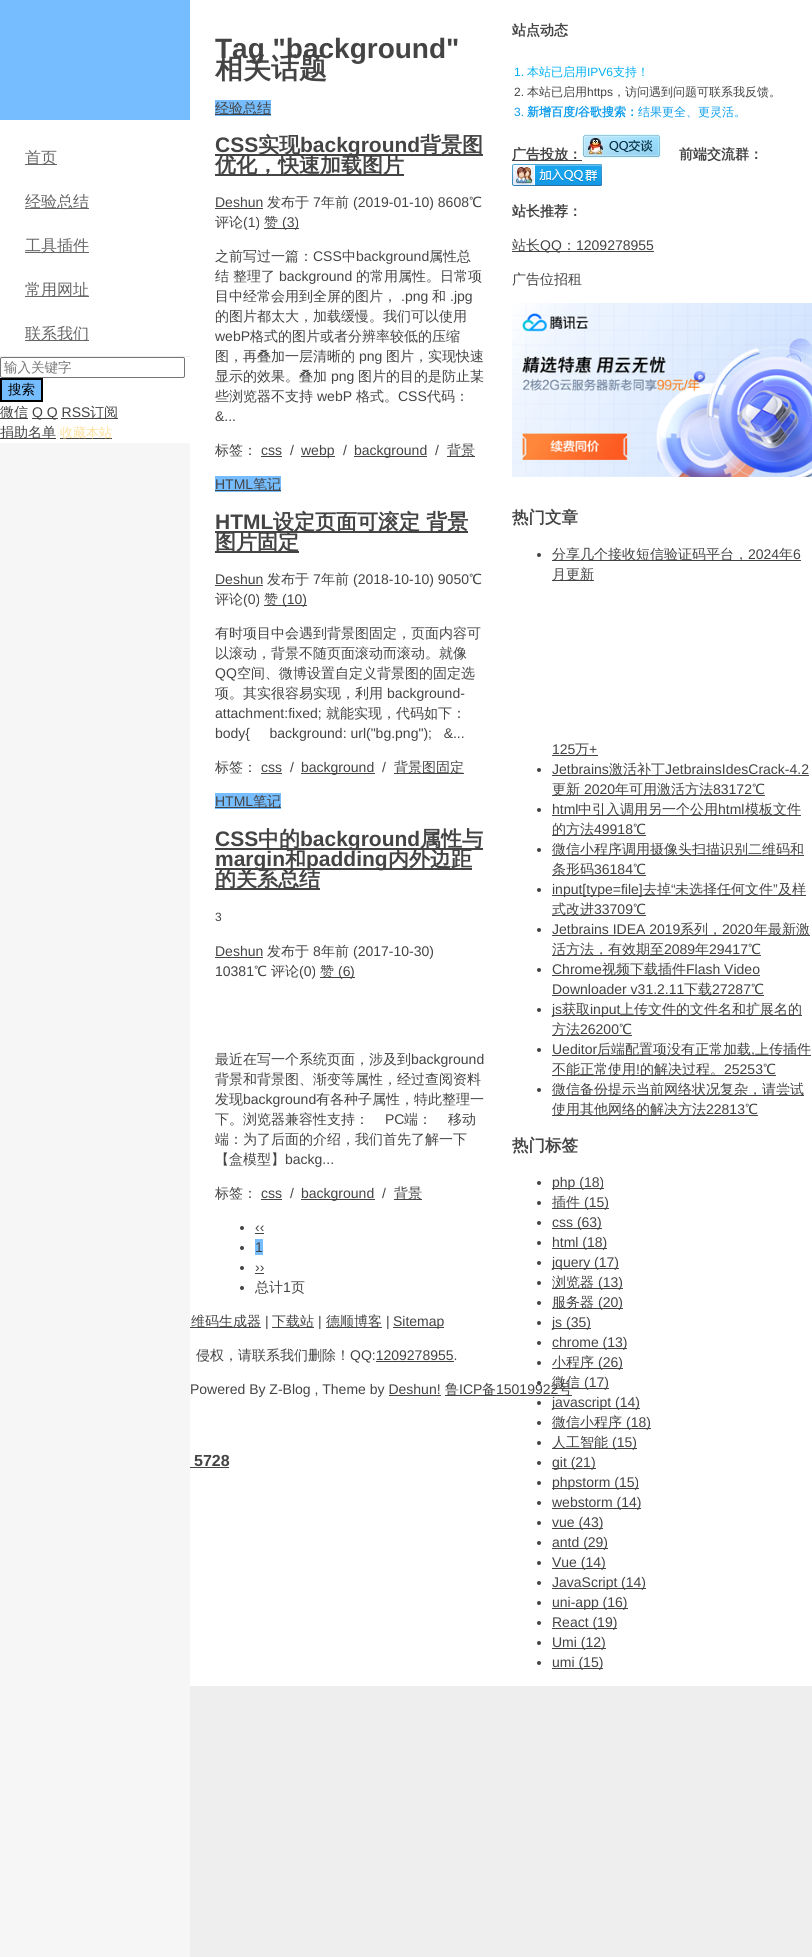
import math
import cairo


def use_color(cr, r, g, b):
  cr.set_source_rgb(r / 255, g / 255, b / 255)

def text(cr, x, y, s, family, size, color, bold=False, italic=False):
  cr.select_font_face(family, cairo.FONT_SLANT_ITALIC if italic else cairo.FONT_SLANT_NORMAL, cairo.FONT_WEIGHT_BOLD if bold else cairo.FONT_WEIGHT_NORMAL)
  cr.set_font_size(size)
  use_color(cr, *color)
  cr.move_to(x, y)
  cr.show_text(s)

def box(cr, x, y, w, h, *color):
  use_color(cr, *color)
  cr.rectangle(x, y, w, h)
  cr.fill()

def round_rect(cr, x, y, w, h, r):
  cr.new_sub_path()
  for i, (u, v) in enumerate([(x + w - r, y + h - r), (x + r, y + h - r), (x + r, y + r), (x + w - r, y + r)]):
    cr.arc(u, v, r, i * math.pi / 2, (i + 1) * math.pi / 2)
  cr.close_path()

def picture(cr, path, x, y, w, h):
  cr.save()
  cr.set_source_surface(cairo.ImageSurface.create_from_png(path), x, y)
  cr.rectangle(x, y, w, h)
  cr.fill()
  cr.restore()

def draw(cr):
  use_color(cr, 238, 238, 238)
  cr.paint()
  box(cr, 0, 443, 190, 1514, 246, 246, 246)
  box(cr, 0, 120, 190, 323, 255, 255, 255)
  box(cr, 0, 0, 190, 120, 118, 189, 255)
  box(cr, 0, 356, 190, 1, 238, 238, 238)
  box(cr, 25, 164, 32, 1, 102, 102, 102)
  box(cr, 25, 208, 64, 1, 102, 102, 102)
  box(cr, 25, 252, 64, 1, 102, 102, 102)
  box(cr, 25, 296, 64, 1, 102, 102, 102)
  box(cr, 25, 340, 64, 1, 102, 102, 102)
  round_rect(cr, 0.5, 357.5, 184, 20, 1.5)
  use_color(cr, 118, 118, 118)
  cr.set_line_width(1)
  cr.stroke()
  use_color(cr, 118, 189, 255)
  cr.rectangle(1, 379, 41, 22)
  cr.fill_preserve()
  use_color(cr, 0, 0, 0)
  cr.set_line_width(2)
  cr.stroke()
  box(cr, 0, 418, 28, 1, 68, 68, 68)
  box(cr, 32, 418, 26, 1, 68, 68, 68)
  box(cr, 61, 418, 57, 1, 68, 68, 68)
  box(cr, 0, 438, 56, 1, 68, 68, 68)
  box(cr, 60, 438, 52, 1, 68, 68, 68)
  box(cr, 190, 0, 622, 1686, 255, 255, 255)
  box(cr, 215, 100, 56, 16, 118, 189, 255)
  box(cr, 215, 114, 56, 1, 68, 68, 68)
  box(cr, 215, 154, 268, 2, 68, 68, 68)
  box(cr, 215, 174, 189, 2, 68, 68, 68)
  box(cr, 215, 208, 48, 1, 68, 68, 68)
  box(cr, 264, 228, 35, 1, 68, 68, 68)
  box(cr, 261, 456, 21, 1, 68, 68, 68)
  box(cr, 301, 456, 34, 1, 68, 68, 68)
  box(cr, 354, 456, 73, 1, 68, 68, 68)
  box(cr, 447, 456, 28, 1, 68, 68, 68)
  box(cr, 215, 476, 66, 16, 118, 189, 255)
  box(cr, 215, 490, 66, 1, 68, 68, 68)
  box(cr, 215, 531, 253, 2, 68, 68, 68)
  box(cr, 215, 551, 84, 2, 68, 68, 68)
  box(cr, 215, 585, 48, 1, 68, 68, 68)
  box(cr, 264, 605, 43, 1, 68, 68, 68)
  box(cr, 261, 773, 21, 1, 68, 68, 68)
  box(cr, 301, 773, 74, 1, 68, 68, 68)
  box(cr, 394, 773, 70, 1, 68, 68, 68)
  box(cr, 215, 793, 66, 16, 118, 189, 255)
  box(cr, 215, 807, 66, 1, 68, 68, 68)
  box(cr, 215, 848, 268, 2, 68, 68, 68)
  box(cr, 215, 868, 257, 2, 68, 68, 68)
  box(cr, 215, 888, 105, 2, 68, 68, 68)
  box(cr, 215, 957, 48, 1, 68, 68, 68)
  box(cr, 320, 977, 22, 1, 68, 68, 68)
  box(cr, 342, 977, 13, 1, 68, 68, 68)
  box(cr, 261, 1199, 21, 1, 68, 68, 68)
  box(cr, 301, 1199, 74, 1, 68, 68, 68)
  box(cr, 394, 1199, 28, 1, 68, 68, 68)
  cr.arc(242, 1228, 2, 0, 2 * math.pi)
  cr.fill()
  box(cr, 255, 1233, 9, 1, 68, 68, 68)
  cr.arc(242, 1248, 2, 0, 2 * math.pi)
  cr.fill()
  box(cr, 255, 1239, 8, 16, 118, 189, 255)
  use_color(cr, 68, 68, 68)
  cr.arc(242, 1268, 2, 0, 2 * math.pi)
  cr.fill()
  box(cr, 255, 1273, 9, 1, 68, 68, 68)
  cr.arc(242, 1288, 2, 0, 2 * math.pi)
  cr.fill()
  box(cr, 512, 160, 70, 1, 68, 68, 68)
  picture(cr, "img_01.png", 582, 134, 79, 25)
  picture(cr, "img_02.png", 512, 164, 90, 22)
  box(cr, 512, 251, 142, 1, 68, 68, 68)
  picture(cr, "img_03.png", 512, 303, 300, 174)
  cr.arc(539, 555, 2, 0, 2 * math.pi)
  cr.fill()
  box(cr, 552, 560, 249, 1, 68, 68, 68)
  box(cr, 552, 580, 42, 1, 68, 68, 68)
  box(cr, 552, 755, 46, 1, 68, 68, 68)
  cr.arc(539, 770, 2, 0, 2 * math.pi)
  cr.fill()
  box(cr, 552, 775, 257, 1, 68, 68, 68)
  box(cr, 552, 795, 213, 1, 68, 68, 68)
  cr.arc(539, 810, 2, 0, 2 * math.pi)
  cr.fill()
  box(cr, 552, 815, 249, 1, 68, 68, 68)
  box(cr, 552, 835, 94, 1, 68, 68, 68)
  cr.arc(539, 850, 2, 0, 2 * math.pi)
  cr.fill()
  box(cr, 552, 855, 252, 1, 68, 68, 68)
  box(cr, 552, 875, 94, 1, 68, 68, 68)
  box(cr, 552, 895, 254, 1, 68, 68, 68)
  cr.arc(539, 890, 2, 0, 2 * math.pi)
  cr.fill()
  box(cr, 552, 915, 94, 1, 68, 68, 68)
  cr.arc(539, 930, 2, 0, 2 * math.pi)
  cr.fill()
  box(cr, 552, 935, 258, 1, 68, 68, 68)
  box(cr, 552, 955, 209, 1, 68, 68, 68)
  cr.arc(539, 970, 2, 0, 2 * math.pi)
  cr.fill()
  box(cr, 552, 975, 208, 1, 68, 68, 68)
  box(cr, 552, 995, 212, 1, 68, 68, 68)
  cr.arc(539, 1010, 2, 0, 2 * math.pi)
  cr.fill()
  box(cr, 552, 1015, 250, 1, 68, 68, 68)
  box(cr, 552, 1035, 80, 1, 68, 68, 68)
  cr.arc(539, 1050, 2, 0, 2 * math.pi)
  cr.fill()
  box(cr, 552, 1055, 259, 1, 68, 68, 68)
  box(cr, 552, 1075, 224, 1, 68, 68, 68)
  cr.arc(539, 1090, 2, 0, 2 * math.pi)
  cr.fill()
  box(cr, 552, 1095, 252, 1, 68, 68, 68)
  box(cr, 552, 1115, 206, 1, 68, 68, 68)
  cr.arc(539, 1183, 2, 0, 2 * math.pi)
  cr.fill()
  box(cr, 552, 1188, 52, 1, 68, 68, 68)
  cr.arc(539, 1203, 2, 0, 2 * math.pi)
  cr.fill()
  box(cr, 552, 1208, 57, 1, 68, 68, 68)
  cr.arc(539, 1223, 2, 0, 2 * math.pi)
  cr.fill()
  box(cr, 552, 1228, 50, 1, 68, 68, 68)
  cr.arc(539, 1243, 2, 0, 2 * math.pi)
  cr.fill()
  box(cr, 552, 1248, 55, 1, 68, 68, 68)
  cr.arc(539, 1263, 2, 0, 2 * math.pi)
  cr.fill()
  box(cr, 552, 1268, 38, 1, 68, 68, 68)
  box(cr, 590, 1268, 29, 1, 68, 68, 68)
  cr.arc(539, 1283, 2, 0, 2 * math.pi)
  cr.fill()
  box(cr, 552, 1288, 71, 1, 68, 68, 68)
  cr.arc(539, 1303, 2, 0, 2 * math.pi)
  cr.fill()
  box(cr, 552, 1308, 71, 1, 68, 68, 68)
  cr.arc(539, 1323, 2, 0, 2 * math.pi)
  cr.fill()
  box(cr, 552, 1328, 39, 1, 68, 68, 68)
  cr.arc(539, 1343, 2, 0, 2 * math.pi)
  cr.fill()
  box(cr, 552, 1348, 75, 1, 68, 68, 68)
  cr.arc(539, 1363, 2, 0, 2 * math.pi)
  cr.fill()
  box(cr, 552, 1368, 71, 1, 68, 68, 68)
  cr.arc(539, 1383, 2, 0, 2 * math.pi)
  cr.fill()
  box(cr, 552, 1388, 57, 1, 68, 68, 68)
  cr.arc(539, 1403, 2, 0, 2 * math.pi)
  cr.fill()
  box(cr, 552, 1408, 59, 1, 68, 68, 68)
  box(cr, 611, 1408, 29, 1, 68, 68, 68)
  cr.arc(539, 1423, 2, 0, 2 * math.pi)
  cr.fill()
  box(cr, 552, 1428, 99, 1, 68, 68, 68)
  cr.arc(539, 1443, 2, 0, 2 * math.pi)
  cr.fill()
  box(cr, 552, 1448, 85, 1, 68, 68, 68)
  cr.arc(539, 1463, 2, 0, 2 * math.pi)
  cr.fill()
  box(cr, 552, 1468, 44, 1, 68, 68, 68)
  cr.arc(539, 1483, 2, 0, 2 * math.pi)
  cr.fill()
  box(cr, 552, 1488, 87, 1, 68, 68, 68)
  cr.arc(539, 1503, 2, 0, 2 * math.pi)
  cr.fill()
  box(cr, 552, 1508, 89, 1, 68, 68, 68)
  cr.arc(539, 1523, 2, 0, 2 * math.pi)
  cr.fill()
  box(cr, 552, 1528, 51, 1, 68, 68, 68)
  cr.arc(539, 1543, 2, 0, 2 * math.pi)
  cr.fill()
  box(cr, 552, 1548, 56, 1, 68, 68, 68)
  cr.arc(539, 1563, 2, 0, 2 * math.pi)
  cr.fill()
  box(cr, 552, 1568, 54, 1, 68, 68, 68)
  cr.arc(539, 1583, 2, 0, 2 * math.pi)
  cr.fill()
  box(cr, 552, 1588, 65, 1, 68, 68, 68)
  box(cr, 617, 1588, 29, 1, 68, 68, 68)
  cr.arc(539, 1603, 2, 0, 2 * math.pi)
  cr.fill()
  box(cr, 552, 1608, 76, 1, 68, 68, 68)
  cr.arc(539, 1623, 2, 0, 2 * math.pi)
  cr.fill()
  box(cr, 552, 1628, 65, 1, 68, 68, 68)
  cr.arc(539, 1643, 2, 0, 2 * math.pi)
  cr.fill()
  box(cr, 552, 1648, 54, 1, 68, 68, 68)
  cr.arc(539, 1663, 2, 0, 2 * math.pi)
  cr.fill()
  box(cr, 552, 1668, 51, 1, 68, 68, 68)
  box(cr, 190, 1327, 71, 1, 68, 68, 68)
  box(cr, 272, 1327, 42, 1, 68, 68, 68)
  box(cr, 326, 1327, 56, 1, 68, 68, 68)
  box(cr, 393, 1327, 51, 1, 68, 68, 68)
  box(cr, 376, 1361, 78, 1, 68, 68, 68)
  box(cr, 445, 1395, 127, 1, 68, 68, 68)
  box(cr, 389, 1395, 52, 1, 68, 68, 68)
  box(cr, 190, 1467, 39, 1, 68, 68, 68)
  text(cr, 25, 163, "首页", "WenQuanYi Zen Hei Medium", 16, (102, 102, 102))
  text(cr, 25, 207, "经验总结", "WenQuanYi Zen Hei Medium", 16, (102, 102, 102))
  text(cr, 25, 251, "工具插件", "WenQuanYi Zen Hei Medium", 16, (102, 102, 102))
  text(cr, 25, 295, "常用网址", "WenQuanYi Zen Hei Medium", 16, (102, 102, 102))
  text(cr, 25, 339, "联系我们", "WenQuanYi Zen Hei Medium", 16, (102, 102, 102))
  text(cr, 4, 372, "输入关键字", "WenQuanYi Zen Hei Medium", 13.5, (117, 117, 117))
  text(cr, 8, 394, "搜索", "WenQuanYi Zen Hei Medium", 13.5, (0, 0, 0))
  text(cr, 0, 417, "微信", "WenQuanYi Zen Hei Medium", 14, (68, 68, 68))
  text(cr, 32, 417, "Q Q RSS", "Liberation Sans", 14, (68, 68, 68))
  text(cr, 90, 417, "订阅", "WenQuanYi Zen Hei Medium", 14, (68, 68, 68))
  text(cr, 0, 437, "捐助名单", "WenQuanYi Zen Hei Medium", 14, (68, 68, 68))
  text(cr, 60, 437, "收藏本站", "WenQuanYi Zen Hei Medium", 13, (255, 224, 158))
  text(cr, 215, 58, "Tag \"background\"", "Liberation Sans", 28, (68, 68, 68), bold=True)
  text(cr, 215, 78, "相关话题", "WenQuanYi Zen Hei", 28, (68, 68, 68), bold=True)
  text(cr, 215, 113, "经验总结", "WenQuanYi Zen Hei Medium", 14, (68, 68, 68))
  text(cr, 215, 152, "CSS", "Liberation Sans", 21, (68, 68, 68), bold=True)
  text(cr, 258, 152, "实现", "WenQuanYi Zen Hei", 21, (68, 68, 68), bold=True)
  text(cr, 300, 152, "background", "Liberation Sans", 21, (68, 68, 68), bold=True)
  text(cr, 420, 152, "背景图", "WenQuanYi Zen Hei", 21, (68, 68, 68), bold=True)
  text(cr, 215, 172, "优化，快速加载图片", "WenQuanYi Zen Hei", 21, (68, 68, 68), bold=True)
  text(cr, 215, 207, "Deshun", "Liberation Sans", 14, (68, 68, 68))
  text(cr, 267, 207, "发布于", "WenQuanYi Zen Hei Medium", 14, (68, 68, 68))
  text(cr, 313, 207, "7", "Liberation Sans", 14, (68, 68, 68))
  text(cr, 321, 207, "年前", "WenQuanYi Zen Hei Medium", 14, (68, 68, 68))
  text(cr, 353, 207, "(2019-01-10) 8608", "Liberation Sans", 14, (68, 68, 68))
  text(cr, 469, 207, "℃", "WenQuanYi Zen Hei Medium", 14, (68, 68, 68))
  text(cr, 215, 227, "评论", "WenQuanYi Zen Hei Medium", 14, (68, 68, 68))
  text(cr, 243, 227, "(1)", "Liberation Sans", 14, (68, 68, 68))
  text(cr, 264, 227, "赞", "WenQuanYi Zen Hei Medium", 14, (68, 68, 68))
  text(cr, 282, 227, "(3)", "Liberation Sans", 14, (68, 68, 68))
  text(cr, 215, 261, "之前写过一篇：", "WenQuanYi Zen Hei Medium", 14, (68, 68, 68))
  text(cr, 313, 261, "CSS", "Liberation Sans", 14, (68, 68, 68))
  text(cr, 342, 261, "中", "WenQuanYi Zen Hei Medium", 14, (68, 68, 68))
  text(cr, 356, 261, "background", "Liberation Sans", 14, (68, 68, 68))
  text(cr, 429, 261, "属性总", "WenQuanYi Zen Hei Medium", 14, (68, 68, 68))
  text(cr, 215, 281, "结", "WenQuanYi Zen Hei Medium", 14, (68, 68, 68))
  text(cr, 233, 281, "整理了", "WenQuanYi Zen Hei Medium", 14, (68, 68, 68))
  text(cr, 279, 281, "background", "Liberation Sans", 14, (68, 68, 68))
  text(cr, 356, 281, "的常用属性。日常项", "WenQuanYi Zen Hei Medium", 14, (68, 68, 68))
  text(cr, 215, 301, "目中经常会用到全屏的图片，", "WenQuanYi Zen Hei Medium", 14, (68, 68, 68))
  text(cr, 401, 301, ".png", "Liberation Sans", 14, (68, 68, 68))
  text(cr, 432, 301, "和", "WenQuanYi Zen Hei Medium", 14, (68, 68, 68))
  text(cr, 450, 301, ".jpg", "Liberation Sans", 14, (68, 68, 68))
  text(cr, 215, 321, "的图片都太大，加载缓慢。我们可以使用", "WenQuanYi Zen Hei Medium", 14, (68, 68, 68))
  text(cr, 215, 341, "webP", "Liberation Sans", 14, (68, 68, 68))
  text(cr, 250, 341, "格式的图片或者分辨率较低的压缩", "WenQuanYi Zen Hei Medium", 14, (68, 68, 68))
  text(cr, 215, 361, "图，再叠加一层清晰的", "WenQuanYi Zen Hei Medium", 14, (68, 68, 68))
  text(cr, 359, 361, "png", "Liberation Sans", 14, (68, 68, 68))
  text(cr, 386, 361, "图片，实现快速", "WenQuanYi Zen Hei Medium", 14, (68, 68, 68))
  text(cr, 215, 381, "显示的效果。叠加", "WenQuanYi Zen Hei Medium", 14, (68, 68, 68))
  text(cr, 331, 381, "png", "Liberation Sans", 14, (68, 68, 68))
  text(cr, 358, 381, "图片的目的是防止某", "WenQuanYi Zen Hei Medium", 14, (68, 68, 68))
  text(cr, 215, 401, "些浏览器不支持", "WenQuanYi Zen Hei Medium", 14, (68, 68, 68))
  text(cr, 317, 401, "webP", "Liberation Sans", 14, (68, 68, 68))
  text(cr, 356, 401, "格式。", "WenQuanYi Zen Hei Medium", 14, (68, 68, 68))
  text(cr, 398, 401, "CSS", "Liberation Sans", 14, (68, 68, 68))
  text(cr, 427, 401, "代码：", "WenQuanYi Zen Hei Medium", 14, (68, 68, 68))
  text(cr, 215, 421, "&...", "Liberation Sans", 14, (68, 68, 68))
  text(cr, 215, 455, "标签：", "WenQuanYi Zen Hei Medium", 14, (68, 68, 68))
  text(cr, 261, 455, "css", "Liberation Sans", 14, (68, 68, 68))
  text(cr, 290, 455, "/", "Liberation Sans", 14, (68, 68, 68))
  text(cr, 301, 455, "webp", "Liberation Sans", 14, (68, 68, 68))
  text(cr, 343, 455, "/", "Liberation Sans", 14, (68, 68, 68))
  text(cr, 354, 455, "background", "Liberation Sans", 14, (68, 68, 68))
  text(cr, 435, 455, "/", "Liberation Sans", 14, (68, 68, 68))
  text(cr, 447, 455, "背景", "WenQuanYi Zen Hei Medium", 14, (68, 68, 68))
  text(cr, 215, 489, "HTML", "Liberation Sans", 14, (68, 68, 68))
  text(cr, 253, 489, "笔记", "WenQuanYi Zen Hei Medium", 14, (68, 68, 68))
  text(cr, 215, 529, "HTML", "Liberation Sans", 21, (68, 68, 68), bold=True)
  text(cr, 273, 529, "设定页面可滚定 背景", "WenQuanYi Zen Hei", 21, (68, 68, 68), bold=True)
  text(cr, 215, 549, "图片固定", "WenQuanYi Zen Hei", 21, (68, 68, 68), bold=True)
  text(cr, 215, 584, "Deshun", "Liberation Sans", 14, (68, 68, 68))
  text(cr, 267, 584, "发布于", "WenQuanYi Zen Hei Medium", 14, (68, 68, 68))
  text(cr, 313, 584, "7", "Liberation Sans", 14, (68, 68, 68))
  text(cr, 321, 584, "年前", "WenQuanYi Zen Hei Medium", 14, (68, 68, 68))
  text(cr, 353, 584, "(2018-10-10) 9050", "Liberation Sans", 14, (68, 68, 68))
  text(cr, 469, 584, "℃", "WenQuanYi Zen Hei Medium", 14, (68, 68, 68))
  text(cr, 215, 604, "评论", "WenQuanYi Zen Hei Medium", 14, (68, 68, 68))
  text(cr, 243, 604, "(0)", "Liberation Sans", 14, (68, 68, 68))
  text(cr, 264, 604, "赞", "WenQuanYi Zen Hei Medium", 14, (68, 68, 68))
  text(cr, 282, 604, "(10)", "Liberation Sans", 14, (68, 68, 68))
  text(cr, 215, 638, "有时项目中会遇到背景图固定，页面内容可", "WenQuanYi Zen Hei Medium", 14, (68, 68, 68))
  text(cr, 215, 658, "以滚动，背景不随页面滚动而滚动。就像", "WenQuanYi Zen Hei Medium", 14, (68, 68, 68))
  text(cr, 215, 678, "QQ", "Liberation Sans", 14, (68, 68, 68))
  text(cr, 237, 678, "空间、微博设置自定义背景图的固定选", "WenQuanYi Zen Hei Medium", 14, (68, 68, 68))
  text(cr, 215, 698, "项。其实很容易实现，利用", "WenQuanYi Zen Hei Medium", 14, (68, 68, 68))
  text(cr, 387, 698, "background-", "Liberation Sans", 14, (68, 68, 68))
  text(cr, 215, 718, "attachment:fixed;", "Liberation Sans", 14, (68, 68, 68))
  text(cr, 326, 718, "就能实现，代码如下：", "WenQuanYi Zen Hei Medium", 14, (68, 68, 68))
  text(cr, 215, 738, "body{     background: url(\"bg.png\");   &...", "Liberation Sans", 14, (68, 68, 68))
  text(cr, 215, 772, "标签：", "WenQuanYi Zen Hei Medium", 14, (68, 68, 68))
  text(cr, 261, 772, "css", "Liberation Sans", 14, (68, 68, 68))
  text(cr, 290, 772, "/", "Liberation Sans", 14, (68, 68, 68))
  text(cr, 301, 772, "background", "Liberation Sans", 14, (68, 68, 68))
  text(cr, 382, 772, "/", "Liberation Sans", 14, (68, 68, 68))
  text(cr, 394, 772, "背景图固定", "WenQuanYi Zen Hei Medium", 14, (68, 68, 68))
  text(cr, 215, 806, "HTML", "Liberation Sans", 14, (68, 68, 68))
  text(cr, 253, 806, "笔记", "WenQuanYi Zen Hei Medium", 14, (68, 68, 68))
  text(cr, 215, 846, "CSS", "Liberation Sans", 21, (68, 68, 68), bold=True)
  text(cr, 258, 846, "中的", "WenQuanYi Zen Hei", 21, (68, 68, 68), bold=True)
  text(cr, 300, 846, "background", "Liberation Sans", 21, (68, 68, 68), bold=True)
  text(cr, 420, 846, "属性与", "WenQuanYi Zen Hei", 21, (68, 68, 68), bold=True)
  text(cr, 215, 866, "margin", "Liberation Sans", 21, (68, 68, 68), bold=True)
  text(cr, 285, 866, "和", "WenQuanYi Zen Hei", 21, (68, 68, 68), bold=True)
  text(cr, 306, 866, "padding", "Liberation Sans", 21, (68, 68, 68), bold=True)
  text(cr, 388, 866, "内外边距", "WenQuanYi Zen Hei", 21, (68, 68, 68), bold=True)
  text(cr, 215, 886, "的关系总结", "WenQuanYi Zen Hei", 21, (68, 68, 68), bold=True)
  text(cr, 215, 921, "3", "Liberation Sans", 12, (68, 68, 68))
  text(cr, 215, 956, "Deshun", "Liberation Sans", 14, (68, 68, 68))
  text(cr, 267, 956, "发布于", "WenQuanYi Zen Hei Medium", 14, (68, 68, 68))
  text(cr, 313, 956, "8", "Liberation Sans", 14, (68, 68, 68))
  text(cr, 321, 956, "年前", "WenQuanYi Zen Hei Medium", 14, (68, 68, 68))
  text(cr, 353, 956, "(2017-10-30)", "Liberation Sans", 14, (68, 68, 68))
  text(cr, 215, 976, "10381", "Liberation Sans", 14, (68, 68, 68))
  text(cr, 254, 976, "℃ 评论", "WenQuanYi Zen Hei Medium", 14, (68, 68, 68))
  text(cr, 299, 976, "(0)", "Liberation Sans", 14, (68, 68, 68))
  text(cr, 320, 976, "赞", "WenQuanYi Zen Hei Medium", 14, (68, 68, 68))
  text(cr, 338, 976, "(6", "Liberation Sans", 14, (68, 68, 68))
  text(cr, 350, 976, ")", "Liberation Sans", 14, (68, 68, 68))
  text(cr, 215, 1064, "最近在写一个系统页面，涉及到", "WenQuanYi Zen Hei Medium", 14, (68, 68, 68))
  text(cr, 411, 1064, "background", "Liberation Sans", 14, (68, 68, 68))
  text(cr, 215, 1084, "背景和背景图、渐变等属性，经过查阅资料", "WenQuanYi Zen Hei Medium", 14, (68, 68, 68))
  text(cr, 215, 1104, "发现", "WenQuanYi Zen Hei Medium", 14, (68, 68, 68))
  text(cr, 243, 1104, "background", "Liberation Sans", 14, (68, 68, 68))
  text(cr, 316, 1104, "有各种子属性，特此整理一", "WenQuanYi Zen Hei Medium", 14, (68, 68, 68))
  text(cr, 215, 1124, "下。浏览器兼容性支持：", "WenQuanYi Zen Hei Medium", 14, (68, 68, 68))
  text(cr, 385, 1124, "PC", "Liberation Sans", 14, (68, 68, 68))
  text(cr, 404, 1124, "端：", "WenQuanYi Zen Hei Medium", 14, (68, 68, 68))
  text(cr, 448, 1124, "移动", "WenQuanYi Zen Hei Medium", 14, (68, 68, 68))
  text(cr, 215, 1144, "端：为了后面的介绍，我们首先了解一下", "WenQuanYi Zen Hei Medium", 14, (68, 68, 68))
  text(cr, 215, 1164, "【盒模型】", "WenQuanYi Zen Hei Medium", 14, (68, 68, 68))
  text(cr, 285, 1164, "backg...", "Liberation Sans", 14, (68, 68, 68))
  text(cr, 215, 1198, "标签：", "WenQuanYi Zen Hei Medium", 14, (68, 68, 68))
  text(cr, 261, 1198, "css", "Liberation Sans", 14, (68, 68, 68))
  text(cr, 290, 1198, "/", "Liberation Sans", 14, (68, 68, 68))
  text(cr, 301, 1198, "background", "Liberation Sans", 14, (68, 68, 68))
  text(cr, 382, 1198, "/", "Liberation Sans", 14, (68, 68, 68))
  text(cr, 394, 1198, "背景", "WenQuanYi Zen Hei Medium", 14, (68, 68, 68))
  text(cr, 255, 1232, "‹‹", "Liberation Sans", 14, (68, 68, 68))
  text(cr, 255, 1252, "1", "Liberation Sans", 14, (68, 68, 68))
  text(cr, 255, 1272, "››", "Liberation Sans", 14, (68, 68, 68))
  text(cr, 255, 1292, "总计", "WenQuanYi Zen Hei Medium", 14, (68, 68, 68))
  text(cr, 283, 1292, "1", "Liberation Sans", 14, (68, 68, 68))
  text(cr, 291, 1292, "页", "WenQuanYi Zen Hei Medium", 14, (68, 68, 68))
  text(cr, 512, 35, "站点动态", "WenQuanYi Zen Hei", 14, (68, 68, 68), bold=True)
  text(cr, 514, 76, "1.", "Liberation Sans", 12, (0, 176, 240))
  text(cr, 527, 76, "本站已启用", "WenQuanYi Zen Hei Medium", 12, (0, 176, 240))
  text(cr, 587, 76, "IPV6", "Liberation Sans", 12, (0, 176, 240))
  text(cr, 613, 76, "支持！", "WenQuanYi Zen Hei Medium", 12, (0, 176, 240))
  text(cr, 514, 96, "2.", "Liberation Sans", 12, (68, 68, 68))
  text(cr, 527, 96, "本站已启用", "WenQuanYi Zen Hei Medium", 12, (68, 68, 68))
  text(cr, 587, 96, "https", "Liberation Sans", 12, (68, 68, 68))
  text(cr, 613, 96, "，访问遇到问题可联系我反馈。", "WenQuanYi Zen Hei Medium", 12, (68, 68, 68))
  text(cr, 514, 116, "3.", "Liberation Sans", 12, (15, 157, 235))
  text(cr, 527, 116, "新增百度", "WenQuanYi Zen Hei", 12, (15, 157, 235), bold=True)
  text(cr, 575, 116, "/", "Liberation Sans", 12, (15, 157, 235), bold=True)
  text(cr, 578, 116, "谷歌搜索：", "WenQuanYi Zen Hei", 12, (15, 157, 235), bold=True)
  text(cr, 638, 116, "结果更全、更灵活。", "WenQuanYi Zen Hei Medium", 12, (15, 157, 235))
  text(cr, 512, 159, "广告投放：", "WenQuanYi Zen Hei", 14, (68, 68, 68), bold=True)
  text(cr, 679, 159, "前端交流群：", "WenQuanYi Zen Hei", 14, (68, 68, 68), bold=True)
  text(cr, 512, 216, "站长推荐：", "WenQuanYi Zen Hei", 14, (68, 68, 68), bold=True)
  text(cr, 512, 250, "站长", "WenQuanYi Zen Hei Medium", 14, (68, 68, 68))
  text(cr, 540, 250, "QQ", "Liberation Sans", 14, (68, 68, 68))
  text(cr, 562, 250, "：", "WenQuanYi Zen Hei Medium", 14, (68, 68, 68))
  text(cr, 576, 250, "1209278955", "Liberation Sans", 14, (68, 68, 68))
  text(cr, 512, 284, "广告位招租", "WenQuanYi Zen Hei Medium", 14, (68, 68, 68))
  text(cr, 512, 523, "热门文章", "WenQuanYi Zen Hei", 16.5, (68, 68, 68), bold=True)
  text(cr, 552, 559, "分享几个接收短信验证码平台，", "WenQuanYi Zen Hei Medium", 14, (68, 68, 68))
  text(cr, 748, 559, "2024", "Liberation Sans", 14, (68, 68, 68))
  text(cr, 779, 559, "年", "WenQuanYi Zen Hei Medium", 14, (68, 68, 68))
  text(cr, 793, 559, "6", "Liberation Sans", 14, (68, 68, 68))
  text(cr, 552, 579, "月更新", "WenQuanYi Zen Hei Medium", 14, (68, 68, 68))
  text(cr, 552, 754, "125", "Liberation Sans", 14, (68, 68, 68))
  text(cr, 575, 754, "万", "WenQuanYi Zen Hei Medium", 14, (68, 68, 68))
  text(cr, 589, 754, "+", "Liberation Sans", 14, (68, 68, 68))
  text(cr, 552, 774, "Jetbrains", "Liberation Sans", 14, (68, 68, 68))
  text(cr, 609, 774, "激活补丁", "WenQuanYi Zen Hei Medium", 14, (68, 68, 68))
  text(cr, 665, 774, "JetbrainsIdesCrack-4.2", "Liberation Sans", 14, (68, 68, 68))
  text(cr, 552, 794, "更新", "WenQuanYi Zen Hei Medium", 14, (68, 68, 68))
  text(cr, 584, 794, "2020", "Liberation Sans", 14, (68, 68, 68))
  text(cr, 615, 794, "年可用激活方法", "WenQuanYi Zen Hei Medium", 14, (68, 68, 68))
  text(cr, 713, 794, "83172", "Liberation Sans", 14, (68, 68, 68))
  text(cr, 752, 794, "℃", "WenQuanYi Zen Hei Medium", 14, (68, 68, 68))
  text(cr, 552, 814, "html", "Liberation Sans", 14, (68, 68, 68))
  text(cr, 578, 814, "中引入调用另一个公用", "WenQuanYi Zen Hei Medium", 14, (68, 68, 68))
  text(cr, 718, 814, "html", "Liberation Sans", 14, (68, 68, 68))
  text(cr, 745, 814, "模板文件", "WenQuanYi Zen Hei Medium", 14, (68, 68, 68))
  text(cr, 552, 834, "的方法", "WenQuanYi Zen Hei Medium", 14, (68, 68, 68))
  text(cr, 594, 834, "49918", "Liberation Sans", 14, (68, 68, 68))
  text(cr, 633, 834, "℃", "WenQuanYi Zen Hei Medium", 14, (68, 68, 68))
  text(cr, 552, 854, "微信小程序调用摄像头扫描识别二维码和", "WenQuanYi Zen Hei Medium", 14, (68, 68, 68))
  text(cr, 552, 874, "条形码", "WenQuanYi Zen Hei Medium", 14, (68, 68, 68))
  text(cr, 594, 874, "36184", "Liberation Sans", 14, (68, 68, 68))
  text(cr, 633, 874, "℃", "WenQuanYi Zen Hei Medium", 14, (68, 68, 68))
  text(cr, 552, 894, "input[type=file]", "Liberation Sans", 14, (68, 68, 68))
  text(cr, 643, 894, "去掉", "WenQuanYi Zen Hei Medium", 14, (68, 68, 68))
  text(cr, 671, 894, "“", "Liberation Sans", 14, (68, 68, 68))
  text(cr, 675, 894, "未选择任何文件", "WenQuanYi Zen Hei Medium", 14, (68, 68, 68))
  text(cr, 773, 894, "”", "Liberation Sans", 14, (68, 68, 68))
  text(cr, 778, 894, "及样", "WenQuanYi Zen Hei Medium", 14, (68, 68, 68))
  text(cr, 552, 914, "式改进", "WenQuanYi Zen Hei Medium", 14, (68, 68, 68))
  text(cr, 594, 914, "33709", "Liberation Sans", 14, (68, 68, 68))
  text(cr, 633, 914, "℃", "WenQuanYi Zen Hei Medium", 14, (68, 68, 68))
  text(cr, 552, 934, "Jetbrains IDEA 2019", "Liberation Sans", 14, (68, 68, 68))
  text(cr, 680, 934, "系列，", "WenQuanYi Zen Hei Medium", 14, (68, 68, 68))
  text(cr, 722, 934, "2020", "Liberation Sans", 14, (68, 68, 68))
  text(cr, 754, 934, "年最新激", "WenQuanYi Zen Hei Medium", 14, (68, 68, 68))
  text(cr, 552, 954, "活方法，有效期至", "WenQuanYi Zen Hei Medium", 14, (68, 68, 68))
  text(cr, 664, 954, "2089", "Liberation Sans", 14, (68, 68, 68))
  text(cr, 695, 954, "年", "WenQuanYi Zen Hei Medium", 14, (68, 68, 68))
  text(cr, 709, 954, "29417", "Liberation Sans", 14, (68, 68, 68))
  text(cr, 748, 954, "℃", "WenQuanYi Zen Hei Medium", 14, (68, 68, 68))
  text(cr, 552, 974, "Chrome", "Liberation Sans", 14, (68, 68, 68))
  text(cr, 602, 974, "视频下载插件", "WenQuanYi Zen Hei Medium", 14, (68, 68, 68))
  text(cr, 686, 974, "Flash Video", "Liberation Sans", 14, (68, 68, 68))
  text(cr, 552, 994, "Downloader v31.2.11", "Liberation Sans", 14, (68, 68, 68))
  text(cr, 684, 994, "下载", "WenQuanYi Zen Hei Medium", 14, (68, 68, 68))
  text(cr, 712, 994, "27287", "Liberation Sans", 14, (68, 68, 68))
  text(cr, 751, 994, "℃", "WenQuanYi Zen Hei Medium", 14, (68, 68, 68))
  text(cr, 552, 1014, "js", "Liberation Sans", 14, (68, 68, 68))
  text(cr, 562, 1014, "获取", "WenQuanYi Zen Hei Medium", 14, (68, 68, 68))
  text(cr, 590, 1014, "input", "Liberation Sans", 14, (68, 68, 68))
  text(cr, 620, 1014, "上传文件的文件名和扩展名的", "WenQuanYi Zen Hei Medium", 14, (68, 68, 68))
  text(cr, 552, 1034, "方法", "WenQuanYi Zen Hei Medium", 14, (68, 68, 68))
  text(cr, 580, 1034, "26200", "Liberation Sans", 14, (68, 68, 68))
  text(cr, 619, 1034, "℃", "WenQuanYi Zen Hei Medium", 14, (68, 68, 68))
  text(cr, 552, 1054, "Ueditor", "Liberation Sans", 14, (68, 68, 68))
  text(cr, 597, 1054, "后端配置项没有正常加载", "WenQuanYi Zen Hei Medium", 14, (68, 68, 68))
  text(cr, 755, 1054, "上传插件", "WenQuanYi Zen Hei Medium", 14, (68, 68, 68))
  text(cr, 751, 1054, ",", "Liberation Sans", 14, (68, 68, 68))
  text(cr, 552, 1074, "不能正常使用", "WenQuanYi Zen Hei Medium", 14, (68, 68, 68))
  text(cr, 636, 1074, "!", "Liberation Sans", 14, (68, 68, 68))
  text(cr, 640, 1074, "的解决过程。", "WenQuanYi Zen Hei Medium", 14, (68, 68, 68))
  text(cr, 724, 1074, "25253", "Liberation Sans", 14, (68, 68, 68))
  text(cr, 763, 1074, "℃", "WenQuanYi Zen Hei Medium", 14, (68, 68, 68))
  text(cr, 552, 1094, "微信备份提示当前网络状况复杂，请尝试", "WenQuanYi Zen Hei Medium", 14, (68, 68, 68))
  text(cr, 552, 1114, "使用其他网络的解决方法", "WenQuanYi Zen Hei Medium", 14, (68, 68, 68))
  text(cr, 706, 1114, "22813", "Liberation Sans", 14, (68, 68, 68))
  text(cr, 745, 1114, "℃", "WenQuanYi Zen Hei Medium", 14, (68, 68, 68))
  text(cr, 512, 1151, "热门标签", "WenQuanYi Zen Hei", 16.5, (68, 68, 68), bold=True)
  text(cr, 552, 1187, "php (18)", "Liberation Sans", 14, (68, 68, 68))
  text(cr, 552, 1207, "插件", "WenQuanYi Zen Hei Medium", 14, (68, 68, 68))
  text(cr, 584, 1207, "(15)", "Liberation Sans", 14, (68, 68, 68))
  text(cr, 552, 1227, "css (63)", "Liberation Sans", 14, (68, 68, 68))
  text(cr, 552, 1247, "html (18)", "Liberation Sans", 14, (68, 68, 68))
  text(cr, 552, 1267, "jquery", "Liberation Sans", 14, (68, 68, 68))
  text(cr, 594, 1267, "(17)", "Liberation Sans", 14, (68, 68, 68))
  text(cr, 552, 1287, "浏览器", "WenQuanYi Zen Hei Medium", 14, (68, 68, 68))
  text(cr, 598, 1287, "(13)", "Liberation Sans", 14, (68, 68, 68))
  text(cr, 552, 1307, "服务器", "WenQuanYi Zen Hei Medium", 14, (68, 68, 68))
  text(cr, 598, 1307, "(20)", "Liberation Sans", 14, (68, 68, 68))
  text(cr, 552, 1327, "js (35)", "Liberation Sans", 14, (68, 68, 68))
  text(cr, 552, 1347, "chrome (13)", "Liberation Sans", 14, (68, 68, 68))
  text(cr, 552, 1367, "小程序", "WenQuanYi Zen Hei Medium", 14, (68, 68, 68))
  text(cr, 598, 1367, "(26)", "Liberation Sans", 14, (68, 68, 68))
  text(cr, 584, 1387, "(17)", "Liberation Sans", 14, (68, 68, 68))
  text(cr, 552, 1407, "javascript", "Liberation Sans", 14, (68, 68, 68))
  text(cr, 615, 1407, "(14)", "Liberation Sans", 14, (68, 68, 68))
  text(cr, 552, 1427, "微信小程序", "WenQuanYi Zen Hei Medium", 14, (68, 68, 68))
  text(cr, 626, 1427, "(18)", "Liberation Sans", 14, (68, 68, 68))
  text(cr, 552, 1447, "人工智能", "WenQuanYi Zen Hei Medium", 14, (68, 68, 68))
  text(cr, 612, 1447, "(15)", "Liberation Sans", 14, (68, 68, 68))
  text(cr, 552, 1467, "git (21)", "Liberation Sans", 14, (68, 68, 68))
  text(cr, 552, 1487, "phpstorm (15)", "Liberation Sans", 14, (68, 68, 68))
  text(cr, 552, 1507, "webstorm (14)", "Liberation Sans", 14, (68, 68, 68))
  text(cr, 552, 1527, "vue (43)", "Liberation Sans", 14, (68, 68, 68))
  text(cr, 552, 1547, "antd (29)", "Liberation Sans", 14, (68, 68, 68))
  text(cr, 552, 1567, "Vue (14)", "Liberation Sans", 14, (68, 68, 68))
  text(cr, 552, 1587, "JavaScript", "Liberation Sans", 14, (68, 68, 68))
  text(cr, 621, 1587, "(14)", "Liberation Sans", 14, (68, 68, 68))
  text(cr, 552, 1607, "uni-app (16)", "Liberation Sans", 14, (68, 68, 68))
  text(cr, 552, 1627, "React (19)", "Liberation Sans", 14, (68, 68, 68))
  text(cr, 552, 1647, "Umi (12)", "Liberation Sans", 14, (68, 68, 68))
  text(cr, 552, 1667, "umi (15)", "Liberation Sans", 14, (68, 68, 68))
  text(cr, 191, 1326, "维码生成器", "WenQuanYi Zen Hei Medium", 14, (68, 68, 68))
  text(cr, 265, 1326, "|", "Liberation Sans", 14, (68, 68, 68))
  text(cr, 272, 1326, "下载站", "WenQuanYi Zen Hei Medium", 14, (68, 68, 68))
  text(cr, 318, 1326, "|", "Liberation Sans", 14, (68, 68, 68))
  text(cr, 326, 1326, "德顺博客", "WenQuanYi Zen Hei Medium", 14, (68, 68, 68))
  text(cr, 386, 1326, "|", "Liberation Sans", 14, (68, 68, 68))
  text(cr, 393, 1326, "Sitemap", "Liberation Sans", 14, (68, 68, 68))
  text(cr, 196, 1360, "侵权，请联系我们删除！", "WenQuanYi Zen Hei Medium", 14, (68, 68, 68))
  text(cr, 350, 1360, "QQ:1209278955.", "Liberation Sans", 14, (68, 68, 68))
  text(cr, 190, 1394, "Powered By Z-Blog , Theme by Deshun!", "Liberation Sans", 14, (68, 68, 68))
  text(cr, 445, 1394, "鲁", "WenQuanYi Zen Hei Medium", 14, (68, 68, 68))
  text(cr, 459, 1394, "ICP", "Liberation Sans", 14, (68, 68, 68))
  text(cr, 482, 1394, "备", "WenQuanYi Zen Hei Medium", 14, (68, 68, 68))
  text(cr, 496, 1394, "15019922", "Liberation Sans", 14, (68, 68, 68))
  text(cr, 558, 1394, "号", "WenQuanYi Zen Hei Medium", 14, (68, 68, 68))
  text(cr, 552, 1387, "微信", "WenQuanYi Zen Hei Medium", 14, (68, 68, 68))
  text(cr, 194, 1466, "5728", "Liberation Sans", 16, (68, 68, 68), bold=True)


surface = cairo.ImageSurface(cairo.FORMAT_RGB24, 812, 1957)
cr = cairo.Context(surface)
options = cairo.FontOptions()
options.set_hint_metrics(cairo.HINT_METRICS_OFF)
options.set_hint_style(cairo.HINT_STYLE_NONE)
cr.set_font_options(options)
cr.set_miter_limit(4)
draw(cr)
surface.write_to_png("out.png")
